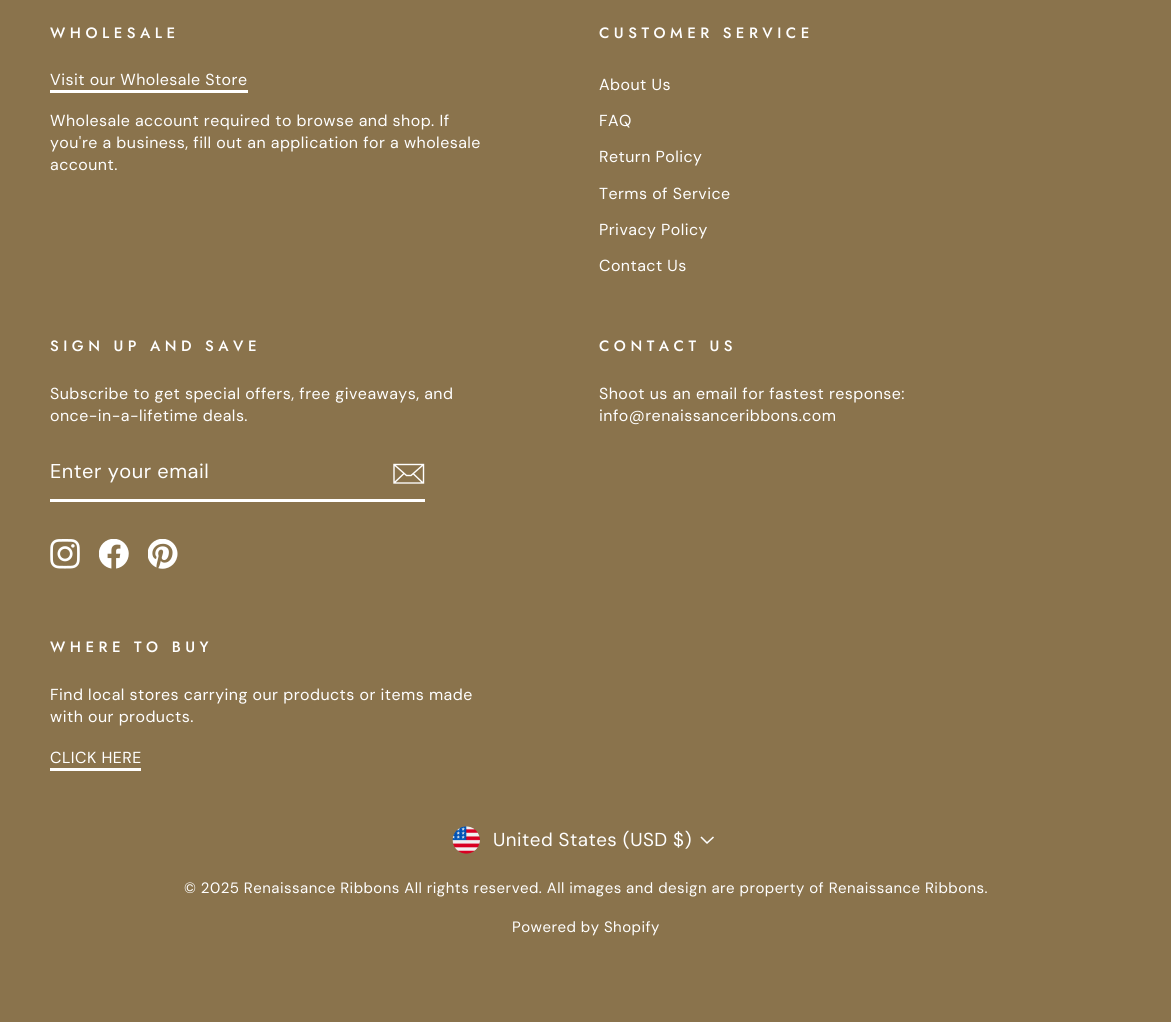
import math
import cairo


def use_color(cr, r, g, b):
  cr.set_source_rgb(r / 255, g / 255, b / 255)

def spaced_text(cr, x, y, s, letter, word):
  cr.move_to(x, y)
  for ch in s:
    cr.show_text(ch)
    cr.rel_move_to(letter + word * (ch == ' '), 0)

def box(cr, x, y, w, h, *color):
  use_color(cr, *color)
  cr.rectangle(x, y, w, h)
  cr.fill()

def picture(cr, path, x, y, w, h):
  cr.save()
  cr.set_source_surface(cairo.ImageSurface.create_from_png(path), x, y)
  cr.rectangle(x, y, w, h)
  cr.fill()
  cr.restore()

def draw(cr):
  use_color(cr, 138, 115, 76)
  cr.paint()
  box(cr, 50, 90, 198, 3, 255, 255, 255)
  box(cr, 50, 499, 375, 3, 255, 255, 255)
  cr.new_path()
  cr.move_to(423.5, 483)
  cr.line_to(394, 483)
  cr.line_to(394, 464.5)
  cr.line_to(423.5, 464.5)
  cr.close_path()
  cr.move_to(394, 464.5)
  cr.line_to(406.5, 475.5)
  cr.line_to(411, 475.5)
  cr.line_to(423.5, 464.5)
  cr.move_to(404, 473.5)
  cr.line_to(394.5, 482.5)
  cr.move_to(423, 483)
  cr.line_to(413, 473.5)
  cr.set_line_width(1.4)
  cr.stroke()
  picture(cr, "img_01.png", 50, 539, 30, 30)
  picture(cr, "img_02.png", 99, 539, 30, 30)
  picture(cr, "img_03.png", 148, 539, 30, 30)
  box(cr, 50, 768, 91, 3, 255, 255, 255)
  picture(cr, "img_04.png", 452, 826, 28, 28)
  cr.new_path()
  cr.move_to(701, 837)
  cr.line_to(707, 843)
  cr.line_to(713.5, 837)
  cr.set_line_width(1.5)
  cr.stroke()
  cr.select_font_face("Jost Medium")
  cr.set_font_size(15)
  spaced_text(cr, 50, 38, "WHOLESALE", 4.5, 0)
  cr.select_font_face("DM Sans")
  cr.set_font_size(15.95)
  spaced_text(cr, 50, 85, "Visit our Wholesale Store", 0.47, 0)
  spaced_text(cr, 50, 126, "Wholesale account required to browse and shop. If", 0.47, 0)
  spaced_text(cr, 50, 148, "you're a business, fill out an application for a wholesale", 0.47, 0)
  spaced_text(cr, 50, 170, "account.", 0.47, 0)
  cr.select_font_face("Jost Medium")
  cr.set_font_size(15)
  spaced_text(cr, 599, 38, "CUSTOMER SERVICE", 4.5, 0)
  cr.select_font_face("DM Sans")
  cr.set_font_size(15.95)
  spaced_text(cr, 599, 90, "About Us", 0.47, 0)
  spaced_text(cr, 599, 126, "FAQ", 0.47, 0)
  spaced_text(cr, 599, 162, "Return Policy", 0.47, 0)
  spaced_text(cr, 599, 199, "Terms of Service", 0.47, 0)
  spaced_text(cr, 599, 235, "Privacy Policy", 0.47, 0)
  spaced_text(cr, 599, 271, "Contact Us", 0.47, 0)
  cr.select_font_face("Jost Medium")
  cr.set_font_size(15)
  spaced_text(cr, 50, 351, "SIGN UP AND SAVE", 4.5, 0)
  cr.select_font_face("DM Sans")
  cr.set_font_size(15.95)
  spaced_text(cr, 50, 399, "Subscribe to get special offers, free giveaways, and", 0.47, 0)
  spaced_text(cr, 50, 421, "once-in-a-lifetime deals.", 0.47, 0)
  cr.set_font_size(20)
  spaced_text(cr, 50, 478, "Enter your email", 0.5, 0)
  cr.select_font_face("Jost Medium")
  cr.set_font_size(15)
  spaced_text(cr, 599, 351, "CONTACT US", 4.5, 0)
  cr.select_font_face("DM Sans")
  cr.set_font_size(15.95)
  spaced_text(cr, 599, 399, "Shoot us an email for fastest response:", 0.47, 0)
  spaced_text(cr, 599, 421, "info@renaissanceribbons.com", 0.47, 0)
  cr.select_font_face("Jost Medium")
  cr.set_font_size(15)
  spaced_text(cr, 50, 652, "WHERE TO BUY", 4.5, 0)
  cr.select_font_face("DM Sans")
  cr.set_font_size(15.95)
  spaced_text(cr, 50, 700, "Find local stores carrying our products or items made", 0.47, 0)
  spaced_text(cr, 50, 722, "with our products.", 0.47, 0)
  spaced_text(cr, 50, 763, "CLICK HERE", 0.47, 0)
  cr.set_font_size(18.75)
  spaced_text(cr, 493, 846, "United States (USD $)", 0.47, 0)
  cr.set_font_size(15)
  spaced_text(cr, 184, 893, "© 2025 Renaissance Ribbons All rights reserved. All images and design are property of Renaissance Ribbons.", 0.47, 0)
  spaced_text(cr, 512, 932, "Powered by Shopify", 0.47, 0)


surface = cairo.ImageSurface(cairo.FORMAT_RGB24, 1171, 1022)
cr = cairo.Context(surface)
options = cairo.FontOptions()
options.set_hint_metrics(cairo.HINT_METRICS_OFF)
options.set_hint_style(cairo.HINT_STYLE_NONE)
cr.set_font_options(options)
cr.set_miter_limit(4)
draw(cr)
surface.write_to_png("out.png")
